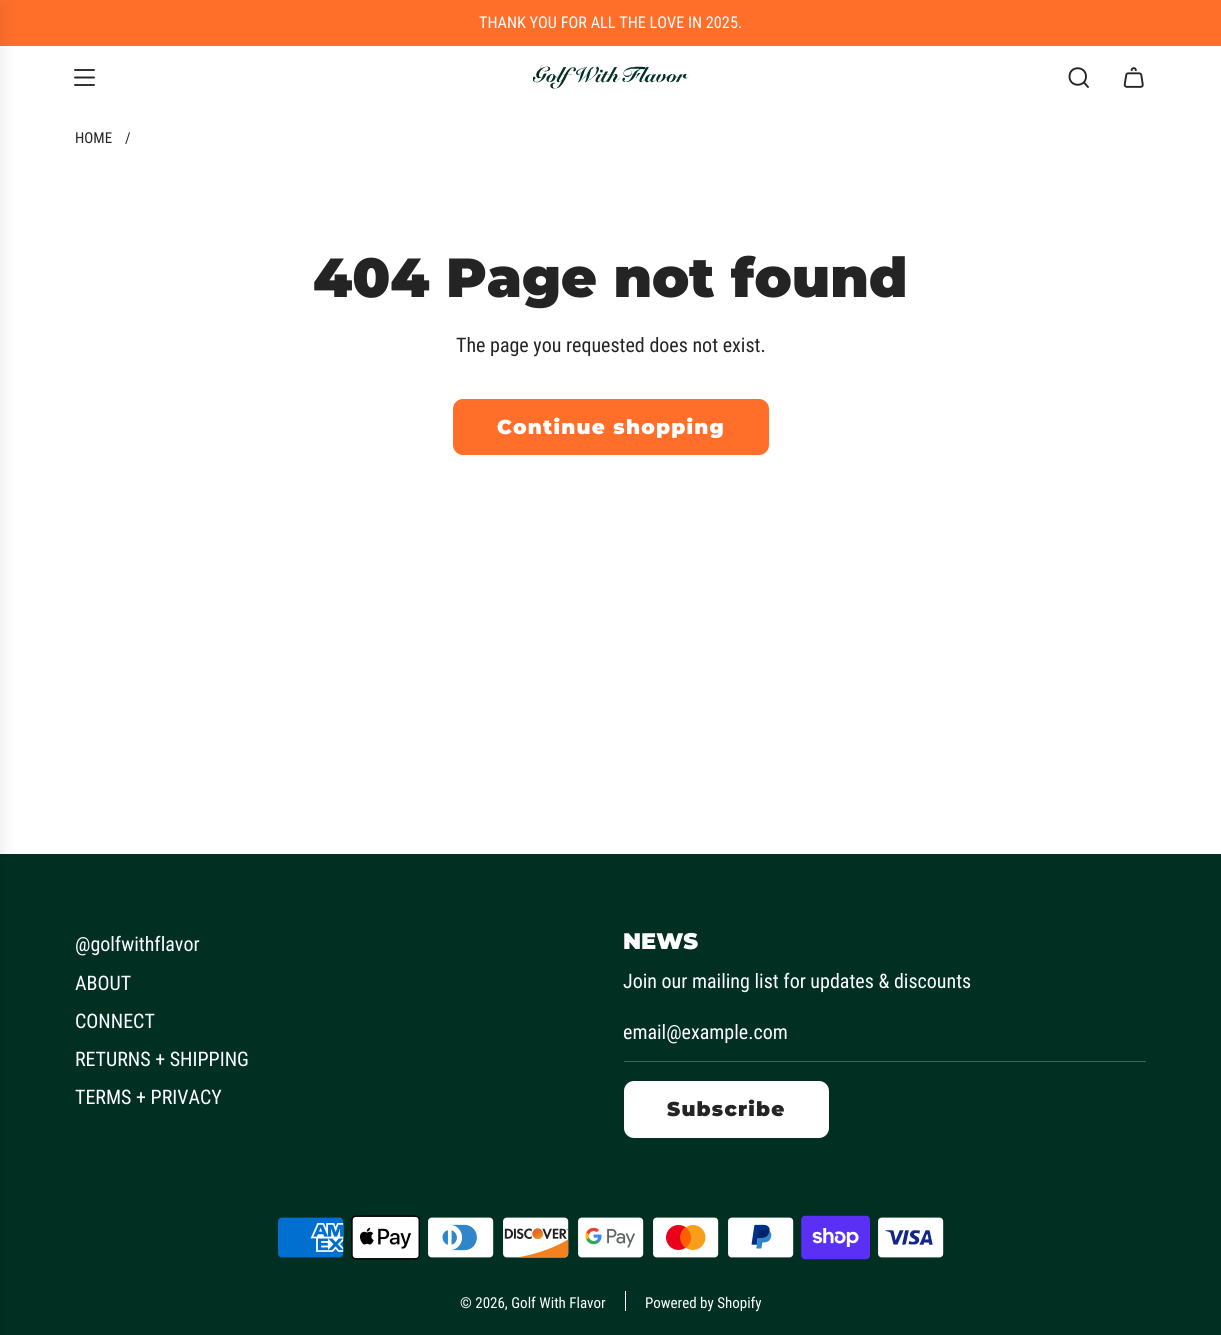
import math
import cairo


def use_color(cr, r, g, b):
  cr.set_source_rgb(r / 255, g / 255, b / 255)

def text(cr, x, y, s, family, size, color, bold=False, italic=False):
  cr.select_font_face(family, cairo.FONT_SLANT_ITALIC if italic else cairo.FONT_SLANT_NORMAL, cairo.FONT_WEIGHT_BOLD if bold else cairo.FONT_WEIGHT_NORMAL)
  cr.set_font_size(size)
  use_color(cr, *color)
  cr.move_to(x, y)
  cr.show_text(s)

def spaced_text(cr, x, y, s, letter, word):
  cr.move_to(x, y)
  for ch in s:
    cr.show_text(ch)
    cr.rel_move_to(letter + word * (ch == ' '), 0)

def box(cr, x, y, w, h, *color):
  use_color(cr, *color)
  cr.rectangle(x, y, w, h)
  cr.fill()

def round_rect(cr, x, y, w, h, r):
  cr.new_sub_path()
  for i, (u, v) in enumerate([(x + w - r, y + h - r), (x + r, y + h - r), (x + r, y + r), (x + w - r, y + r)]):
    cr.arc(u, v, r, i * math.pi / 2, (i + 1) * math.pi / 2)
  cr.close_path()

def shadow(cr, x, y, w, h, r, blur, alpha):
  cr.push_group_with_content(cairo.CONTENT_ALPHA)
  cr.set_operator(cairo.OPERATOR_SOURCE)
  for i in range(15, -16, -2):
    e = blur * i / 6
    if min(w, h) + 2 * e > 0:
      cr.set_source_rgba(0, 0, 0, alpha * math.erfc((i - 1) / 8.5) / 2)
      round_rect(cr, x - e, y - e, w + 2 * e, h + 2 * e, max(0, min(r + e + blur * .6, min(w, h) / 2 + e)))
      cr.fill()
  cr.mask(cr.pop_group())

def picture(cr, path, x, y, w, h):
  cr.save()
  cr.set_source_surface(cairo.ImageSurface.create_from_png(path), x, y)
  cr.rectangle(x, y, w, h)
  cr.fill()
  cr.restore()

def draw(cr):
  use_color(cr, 255, 255, 255)
  cr.paint()
  box(cr, 0, 0, 1221, 46, 255, 111, 42)
  box(cr, 0, 854, 1221, 481, 1, 48, 35)
  use_color(cr, 0, 0, 0)
  shadow(cr, -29, 6, 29, 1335, 0, 9.5, 0.1)
  cr.new_path()
  cr.move_to(75, 70)
  cr.line_to(94, 70)
  cr.move_to(75, 77.5)
  cr.line_to(94, 77.5)
  cr.move_to(75, 85)
  cr.line_to(94, 85)
  use_color(cr, 36, 36, 36)
  cr.set_line_width(1.9)
  cr.set_line_cap(cairo.LINE_CAP_ROUND)
  cr.set_line_join(cairo.LINE_JOIN_ROUND)
  cr.stroke()
  picture(cr, "img_01.png", 533, 65, 156, 24)
  cr.new_path()
  cr.move_to(1084, 82.5)
  cr.line_to(1088, 87)
  cr.move_to(1069.5, 76.5)
  cr.curve_to(1069.5, 87.5, 1086, 87.5, 1086, 76.5)
  cr.curve_to(1086, 65.5, 1069.5, 65.5, 1069.5, 76.5)
  cr.close_path()
  cr.stroke()
  picture(cr, "img_02.png", 1123, 67, 21, 21)
  use_color(cr, 255, 111, 42)
  round_rect(cr, 453, 399, 316, 56, 10)
  cr.fill()
  box(cr, 624, 1061, 522, 1, 65, 100, 90)
  use_color(cr, 255, 255, 255)
  round_rect(cr, 624, 1081, 205, 57, 10)
  cr.fill()
  picture(cr, "img_03.png", 278, 1217, 66, 41)
  picture(cr, "img_04.png", 351, 1215, 69, 45)
  picture(cr, "img_05.png", 428, 1217, 66, 41)
  picture(cr, "img_06.png", 503, 1217, 66, 41)
  picture(cr, "img_07.png", 578, 1217, 66, 41)
  picture(cr, "img_08.png", 653, 1217, 66, 41)
  picture(cr, "img_09.png", 728, 1217, 66, 41)
  picture(cr, "img_10.png", 801, 1215, 69, 45)
  picture(cr, "img_11.png", 878, 1217, 66, 41)
  box(cr, 625, 1291, 1, 20, 255, 255, 255)
  text(cr, 479, 28, "THANK YOU FOR ALL THE LOVE IN 2025.", "Roboto Condensed", 16.25, (255, 255, 255))
  text(cr, 75, 143, "HOME", "Roboto Condensed", 15, (36, 36, 36))
  text(cr, 125, 143, "/", "Roboto Condensed", 15, (36, 36, 36))
  text(cr, 313, 297, "404 Page not found", "Montserrat Black", 55, (36, 36, 36))
  text(cr, 456, 352, "The page you requested does not exist.", "Roboto Condensed", 20, (36, 36, 36))
  cr.select_font_face("Montserrat Black")
  use_color(cr, 255, 255, 255)
  spaced_text(cr, 497, 434, "Continue shopping", 1.25, 0)
  text(cr, 75, 951, "@golfwithflavor", "Roboto Condensed", 20, (255, 255, 255))
  text(cr, 75, 990, "ABOUT", "Roboto Condensed", 20, (255, 255, 255))
  text(cr, 75, 1028, "CONNECT", "Roboto Condensed", 20, (255, 255, 255))
  text(cr, 75, 1066, "RETURNS + SHIPPING", "Roboto Condensed", 20, (255, 255, 255))
  text(cr, 75, 1104, "TERMS + PRIVACY", "Roboto Condensed", 20, (255, 255, 255))
  text(cr, 623, 949, "NEWS", "Montserrat Black", 22.5, (255, 255, 255))
  text(cr, 623, 988, "Join our mailing list for updates & discounts", "Roboto Condensed", 20, (255, 255, 255))
  text(cr, 623, 1039, "email@example.com", "Roboto Condensed", 20, (255, 255, 255))
  cr.select_font_face("Montserrat Black")
  use_color(cr, 36, 36, 36)
  spaced_text(cr, 667, 1116, "Subscribe", 1.25, 0)
  text(cr, 460, 1308, "© 2026, Golf With Flavor", "Roboto Condensed", 15, (255, 255, 255))
  text(cr, 645, 1308, "Powered by Shopify", "Roboto Condensed", 15, (255, 255, 255))


surface = cairo.ImageSurface(cairo.FORMAT_RGB24, 1221, 1335)
cr = cairo.Context(surface)
options = cairo.FontOptions()
options.set_hint_metrics(cairo.HINT_METRICS_OFF)
options.set_hint_style(cairo.HINT_STYLE_NONE)
cr.set_font_options(options)
cr.set_miter_limit(4)
draw(cr)
surface.write_to_png("out.png")
